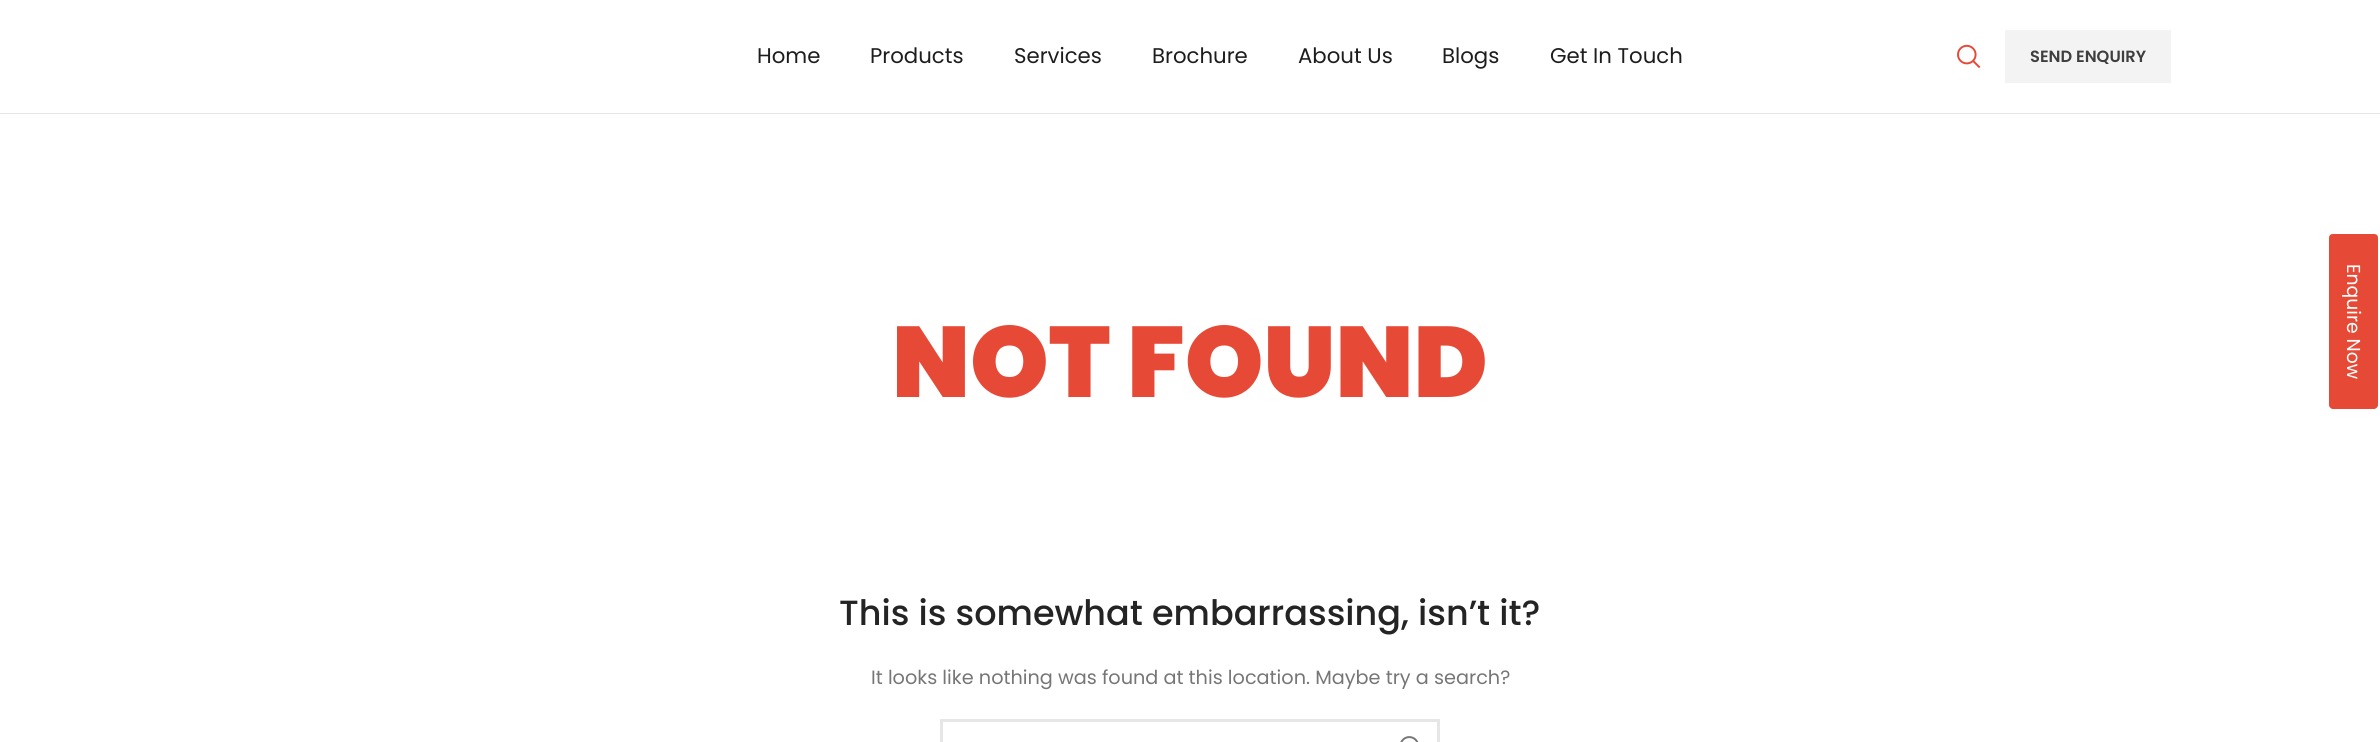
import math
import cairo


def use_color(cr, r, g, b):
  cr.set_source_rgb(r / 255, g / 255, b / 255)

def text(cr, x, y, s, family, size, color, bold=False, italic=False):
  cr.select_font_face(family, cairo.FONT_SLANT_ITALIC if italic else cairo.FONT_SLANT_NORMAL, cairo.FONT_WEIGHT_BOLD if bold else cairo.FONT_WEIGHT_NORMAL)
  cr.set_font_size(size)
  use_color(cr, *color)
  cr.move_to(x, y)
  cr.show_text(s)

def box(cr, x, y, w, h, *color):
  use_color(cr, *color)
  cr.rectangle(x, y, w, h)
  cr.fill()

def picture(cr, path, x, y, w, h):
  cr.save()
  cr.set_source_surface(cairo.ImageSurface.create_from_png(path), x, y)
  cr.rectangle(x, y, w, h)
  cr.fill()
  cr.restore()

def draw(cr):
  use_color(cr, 255, 255, 255)
  cr.paint()
  box(cr, 0, 113, 2380, 1, 230, 230, 230)
  picture(cr, "img_01.png", 1957, 44, 24, 24)
  box(cr, 2005, 30, 166, 53, 243, 243, 243)
  cr.rectangle(941.5, 720.5, 497, 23)
  use_color(cr, 230, 230, 230)
  cr.set_line_width(3)
  cr.stroke()
  picture(cr, "img_02.png", 1400, 736, 19, 6)
  use_color(cr, 230, 74, 54)
  cr.new_path()
  cr.move_to(2378, 238)
  cr.line_to(2378, 405)
  cr.curve_to(2378, 407, 2376, 409, 2374, 409)
  cr.line_to(2333, 409)
  cr.curve_to(2331, 409, 2329, 407, 2329, 405)
  cr.line_to(2329, 238)
  cr.curve_to(2329, 235, 2331, 234, 2333, 234)
  cr.line_to(2374, 234)
  cr.curve_to(2376, 234, 2378, 235, 2378, 238)
  cr.close_path()
  cr.fill()
  text(cr, 757, 63, "Home", "Poppins", 21.25, (29, 29, 29))
  text(cr, 870, 63, "Products", "Poppins", 21.25, (29, 29, 29))
  text(cr, 1014, 63, "Services", "Poppins", 21.25, (29, 29, 29))
  text(cr, 1152, 63, "Brochure", "Poppins", 21.25, (29, 29, 29))
  text(cr, 1298, 63, "About Us", "Poppins", 21.25, (29, 29, 29))
  text(cr, 1442, 63, "Blogs", "Poppins", 21.25, (29, 29, 29))
  text(cr, 1550, 63, "Get In Touch", "Poppins", 21.25, (29, 29, 29))
  text(cr, 2030, 62, "SEND ENQUIRY", "Poppins SemiBold", 16.25, (62, 62, 62))
  text(cr, 892, 397, "NOT FOUND", "Poppins Black", 100, (230, 74, 54))
  text(cr, 839, 625, "This is somewhat embarrassing, isn’t it?", "Poppins Medium", 35, (36, 36, 36))
  text(cr, 871, 684, "It looks like nothing was found at this location. Maybe try a search?", "Poppins", 19.25, (118, 118, 118))
  cr.save()
  cr.translate(2347, 264)
  cr.rotate(90 * math.pi / 180)
  text(cr, 0, 0, "Enquire Now", "Poppins", 18.75, (255, 255, 255))
  cr.restore()


surface = cairo.ImageSurface(cairo.FORMAT_RGB24, 2380, 742)
cr = cairo.Context(surface)
options = cairo.FontOptions()
options.set_hint_metrics(cairo.HINT_METRICS_OFF)
options.set_hint_style(cairo.HINT_STYLE_NONE)
cr.set_font_options(options)
cr.set_miter_limit(4)
draw(cr)
surface.write_to_png("out.png")
